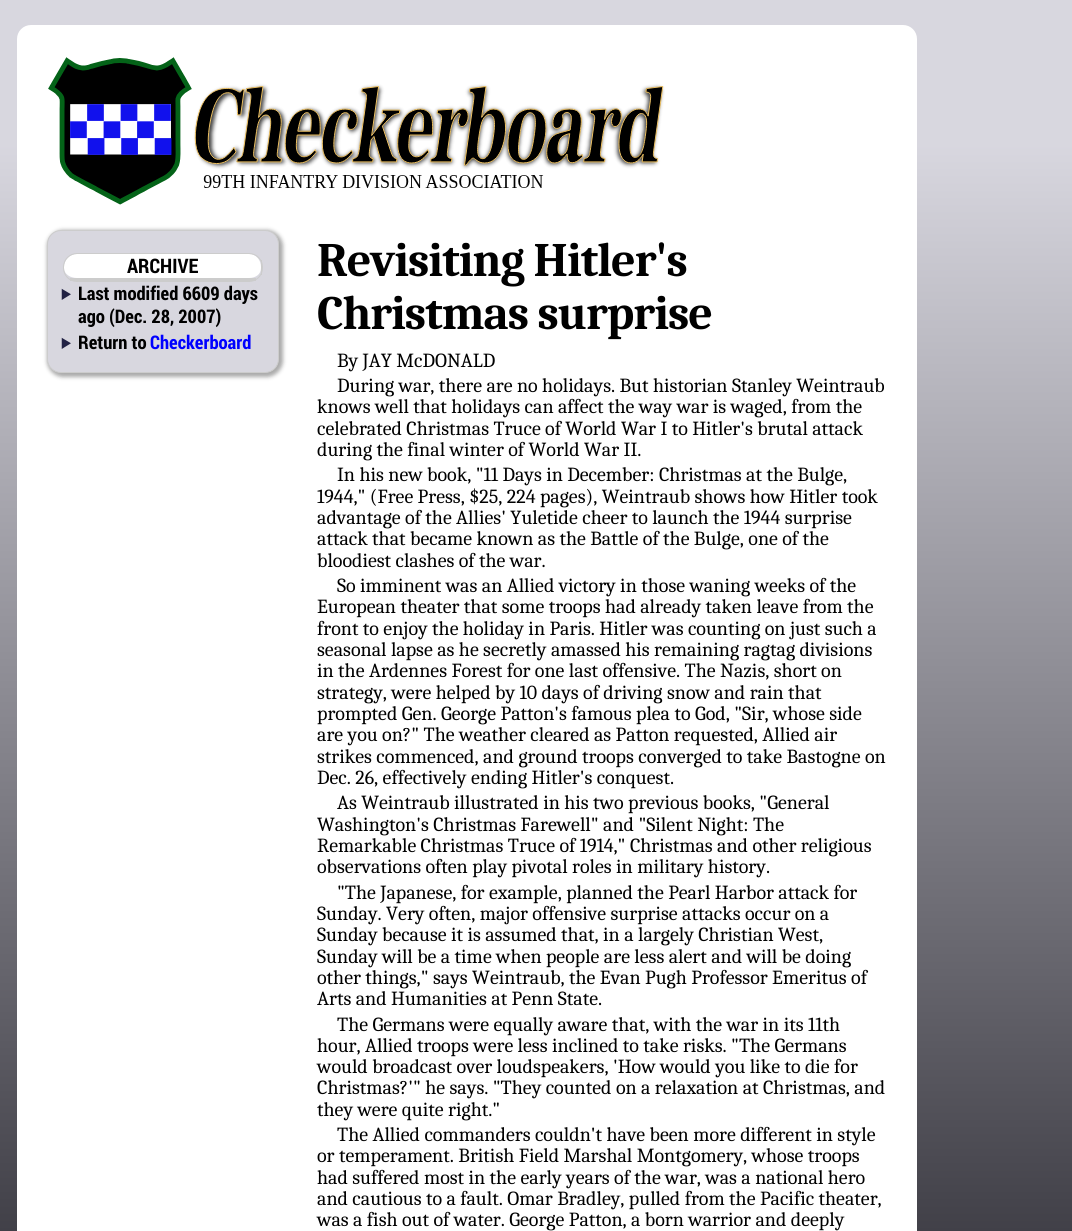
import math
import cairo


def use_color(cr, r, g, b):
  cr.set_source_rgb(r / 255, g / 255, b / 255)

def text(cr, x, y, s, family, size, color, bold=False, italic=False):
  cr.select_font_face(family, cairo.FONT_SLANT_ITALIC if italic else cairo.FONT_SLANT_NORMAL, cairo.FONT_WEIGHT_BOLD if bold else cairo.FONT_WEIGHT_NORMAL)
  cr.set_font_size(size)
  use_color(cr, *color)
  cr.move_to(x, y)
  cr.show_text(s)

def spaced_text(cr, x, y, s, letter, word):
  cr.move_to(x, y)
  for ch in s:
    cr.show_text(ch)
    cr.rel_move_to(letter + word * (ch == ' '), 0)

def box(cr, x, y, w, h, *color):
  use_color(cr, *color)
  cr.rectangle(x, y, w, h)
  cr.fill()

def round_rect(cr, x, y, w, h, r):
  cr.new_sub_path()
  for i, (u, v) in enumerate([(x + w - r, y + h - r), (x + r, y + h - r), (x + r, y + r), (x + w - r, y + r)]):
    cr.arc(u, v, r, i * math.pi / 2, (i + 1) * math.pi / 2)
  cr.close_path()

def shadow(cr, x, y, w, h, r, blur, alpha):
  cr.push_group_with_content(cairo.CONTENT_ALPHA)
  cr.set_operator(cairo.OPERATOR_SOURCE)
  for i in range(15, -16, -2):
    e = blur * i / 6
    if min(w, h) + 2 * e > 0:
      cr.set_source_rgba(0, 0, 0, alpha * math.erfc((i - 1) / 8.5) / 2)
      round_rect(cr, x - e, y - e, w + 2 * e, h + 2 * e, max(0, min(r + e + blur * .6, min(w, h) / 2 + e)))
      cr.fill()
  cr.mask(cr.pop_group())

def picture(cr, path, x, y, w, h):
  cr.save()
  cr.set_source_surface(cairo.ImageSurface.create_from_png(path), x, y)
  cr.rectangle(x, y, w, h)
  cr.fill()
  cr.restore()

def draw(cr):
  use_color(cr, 255, 255, 255)
  cr.paint()
  gradient = cairo.LinearGradient(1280, 0, 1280, 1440)
  gradient.add_color_stop_rgba(0.1, 0.847, 0.843, 0.875, 1)
  gradient.add_color_stop_rgba(0.9, 0.22, 0.216, 0.247, 1)
  cr.set_source(gradient)
  cr.rectangle(0, 0, 1072, 1231)
  cr.fill()
  use_color(cr, 255, 255, 255)
  round_rect(cr, 17, 25, 900, 270, 14)
  cr.fill()
  picture(cr, "img_01.png", 48, 57, 617, 148)
  round_rect(cr, 17, 220, 900, 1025, 14)
  cr.fill()
  use_color(cr, 170, 170, 170)
  shadow(cr, 47, 230, 236, 147, 16, 2, 1)
  use_color(cr, 216, 215, 223)
  round_rect(cr, 47.5, 230.5, 231, 142, 13.5)
  cr.fill_preserve()
  use_color(cr, 204, 204, 204)
  cr.set_line_width(1)
  cr.stroke()
  use_color(cr, 255, 255, 255)
  cr.new_path()
  cr.move_to(77, 254)
  cr.line_to(249, 254)
  cr.curve_to(256, 254, 261, 260, 261, 267)
  cr.line_to(261, 268)
  cr.curve_to(261, 274, 256, 278, 249, 278)
  cr.line_to(77, 278)
  cr.curve_to(70, 278, 64, 274, 64, 268)
  cr.line_to(64, 267)
  cr.curve_to(64, 260, 70, 254, 77, 254)
  cr.close_path()
  cr.fill()
  round_rect(cr, 63.5, 253.5, 199, 28, 13.5)
  use_color(cr, 204, 204, 204)
  cr.stroke()
  box(cr, 261, 260, 1, 15, 204, 204, 204)
  box(cr, 70, 278, 186, 3, 204, 204, 204)
  picture(cr, "img_02.png", 61, 288, 10, 12)
  picture(cr, "img_02.png", 61, 337, 10, 12)
  text(cr, 127, 273, "ARCHIVE", "Roboto Condensed", 20, (0, 0, 0), bold=True)
  text(cr, 78, 300, "Last modified 6609 days", "Roboto Condensed", 18.75, (0, 0, 0), bold=True)
  text(cr, 78, 323, "ago (Dec. 28, 2007)", "Roboto Condensed", 18.75, (0, 0, 0), bold=True)
  text(cr, 78, 349, "Return to", "Roboto Condensed", 18.75, (0, 0, 0), bold=True)
  text(cr, 150, 349, "Checkerboard", "Roboto Condensed", 18.75, (0, 0, 255), bold=True)
  cr.select_font_face("Caladea", cairo.FONT_SLANT_NORMAL, cairo.FONT_WEIGHT_BOLD)
  cr.set_font_size(48)
  use_color(cr, 0, 0, 0)
  spaced_text(cr, 317, 276, "Revisiting Hitler's", -1, 0)
  spaced_text(cr, 317, 329, "Christmas surprise", -1, 0)
  text(cr, 337, 367, "By JAY McDONALD", "Caladea", 20, (0, 0, 0))
  text(cr, 337, 392, "During war, there are no holidays. But historian Stanley Weintraub", "Caladea", 20, (0, 0, 0))
  text(cr, 317, 413, "knows well that holidays can affect the way war is waged, from the", "Caladea", 20, (0, 0, 0))
  text(cr, 317, 435, "celebrated Christmas Truce of World War I to Hitler's brutal attack", "Caladea", 20, (0, 0, 0))
  text(cr, 317, 456, "during the final winter of World War II.", "Caladea", 20, (0, 0, 0))
  text(cr, 337, 481, "In his new book, \"11 Days in December: Christmas at the Bulge,", "Caladea", 20, (0, 0, 0))
  text(cr, 317, 503, "1944,\" (Free Press, $25, 224 pages), Weintraub shows how Hitler took", "Caladea", 20, (0, 0, 0))
  text(cr, 317, 524, "advantage of the Allies' Yuletide cheer to launch the 1944 surprise", "Caladea", 20, (0, 0, 0))
  text(cr, 317, 545, "attack that became known as the Battle of the Bulge, one of the", "Caladea", 20, (0, 0, 0))
  text(cr, 317, 567, "bloodiest clashes of the war.", "Caladea", 20, (0, 0, 0))
  text(cr, 337, 592, "So imminent was an Allied victory in those waning weeks of the", "Caladea", 20, (0, 0, 0))
  text(cr, 317, 613, "European theater that some troops had already taken leave from the", "Caladea", 20, (0, 0, 0))
  text(cr, 317, 635, "front to enjoy the holiday in Paris. Hitler was counting on just such a", "Caladea", 20, (0, 0, 0))
  text(cr, 317, 656, "seasonal lapse as he secretly amassed his remaining ragtag divisions", "Caladea", 20, (0, 0, 0))
  text(cr, 317, 677, "in the Ardennes Forest for one last offensive. The Nazis, short on", "Caladea", 20, (0, 0, 0))
  text(cr, 317, 699, "strategy, were helped by 10 days of driving snow and rain that", "Caladea", 20, (0, 0, 0))
  text(cr, 317, 720, "prompted Gen. George Patton's famous plea to God, \"Sir, whose side", "Caladea", 20, (0, 0, 0))
  text(cr, 317, 741, "are you on?\" The weather cleared as Patton requested, Allied air", "Caladea", 20, (0, 0, 0))
  text(cr, 317, 763, "strikes commenced, and ground troops converged to take Bastogne on", "Caladea", 20, (0, 0, 0))
  text(cr, 317, 784, "Dec. 26, effectively ending Hitler's conquest.", "Caladea", 20, (0, 0, 0))
  text(cr, 337, 809, "As Weintraub illustrated in his two previous books, \"General", "Caladea", 20, (0, 0, 0))
  text(cr, 317, 831, "Washington's Christmas Farewell\" and \"Silent Night: The", "Caladea", 20, (0, 0, 0))
  text(cr, 317, 852, "Remarkable Christmas Truce of 1914,\" Christmas and other religious", "Caladea", 20, (0, 0, 0))
  text(cr, 317, 873, "observations often play pivotal roles in military history.", "Caladea", 20, (0, 0, 0))
  text(cr, 337, 899, "\"The Japanese, for example, planned the Pearl Harbor attack for", "Caladea", 20, (0, 0, 0))
  text(cr, 317, 920, "Sunday. Very often, major offensive surprise attacks occur on a", "Caladea", 20, (0, 0, 0))
  text(cr, 317, 941, "Sunday because it is assumed that, in a largely Christian West,", "Caladea", 20, (0, 0, 0))
  text(cr, 317, 963, "Sunday will be a time when people are less alert and will be doing", "Caladea", 20, (0, 0, 0))
  text(cr, 317, 984, "other things,\" says Weintraub, the Evan Pugh Professor Emeritus of", "Caladea", 20, (0, 0, 0))
  text(cr, 317, 1005, "Arts and Humanities at Penn State.", "Caladea", 20, (0, 0, 0))
  text(cr, 337, 1031, "The Germans were equally aware that, with the war in its 11th", "Caladea", 20, (0, 0, 0))
  text(cr, 317, 1052, "hour, Allied troops were less inclined to take risks. \"The Germans", "Caladea", 20, (0, 0, 0))
  text(cr, 317, 1073, "would broadcast over loudspeakers, 'How would you like to die for", "Caladea", 20, (0, 0, 0))
  text(cr, 317, 1094, "Christmas?'\" he says. \"They counted on a relaxation at Christmas, and", "Caladea", 20, (0, 0, 0))
  text(cr, 317, 1116, "they were quite right.\"", "Caladea", 20, (0, 0, 0))
  text(cr, 337, 1141, "The Allied commanders couldn't have been more different in style", "Caladea", 20, (0, 0, 0))
  text(cr, 317, 1162, "or temperament. British Field Marshal Montgomery, whose troops", "Caladea", 20, (0, 0, 0))
  text(cr, 317, 1184, "had suffered most in the early years of the war, was a national hero", "Caladea", 20, (0, 0, 0))
  text(cr, 317, 1205, "and cautious to a fault. Omar Bradley, pulled from the Pacific theater,", "Caladea", 20, (0, 0, 0))
  text(cr, 317, 1226, "was a fish out of water. George Patton, a born warrior and deeply", "Caladea", 20, (0, 0, 0))


surface = cairo.ImageSurface(cairo.FORMAT_RGB24, 1072, 1231)
cr = cairo.Context(surface)
options = cairo.FontOptions()
options.set_hint_metrics(cairo.HINT_METRICS_OFF)
options.set_hint_style(cairo.HINT_STYLE_NONE)
cr.set_font_options(options)
cr.set_miter_limit(4)
draw(cr)
surface.write_to_png("out.png")
